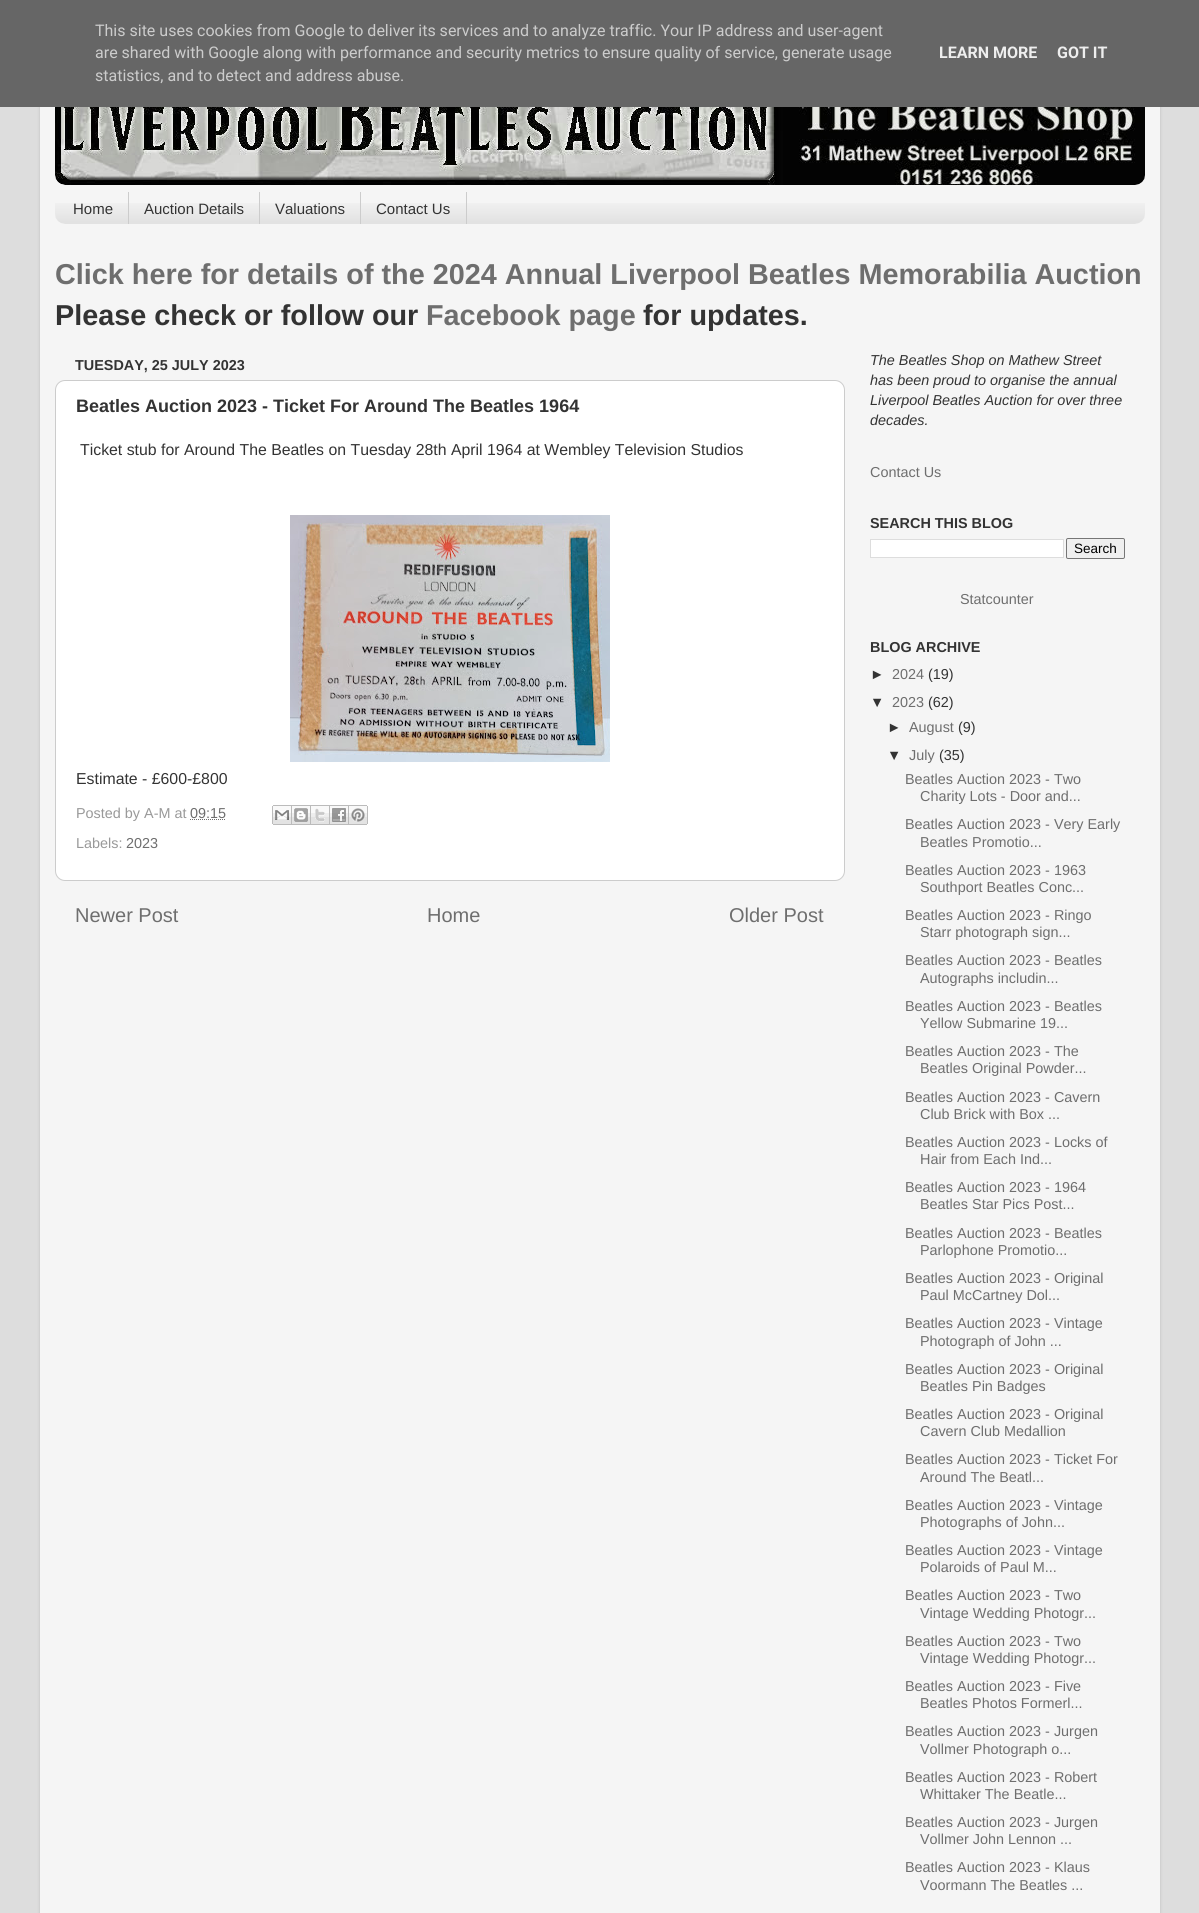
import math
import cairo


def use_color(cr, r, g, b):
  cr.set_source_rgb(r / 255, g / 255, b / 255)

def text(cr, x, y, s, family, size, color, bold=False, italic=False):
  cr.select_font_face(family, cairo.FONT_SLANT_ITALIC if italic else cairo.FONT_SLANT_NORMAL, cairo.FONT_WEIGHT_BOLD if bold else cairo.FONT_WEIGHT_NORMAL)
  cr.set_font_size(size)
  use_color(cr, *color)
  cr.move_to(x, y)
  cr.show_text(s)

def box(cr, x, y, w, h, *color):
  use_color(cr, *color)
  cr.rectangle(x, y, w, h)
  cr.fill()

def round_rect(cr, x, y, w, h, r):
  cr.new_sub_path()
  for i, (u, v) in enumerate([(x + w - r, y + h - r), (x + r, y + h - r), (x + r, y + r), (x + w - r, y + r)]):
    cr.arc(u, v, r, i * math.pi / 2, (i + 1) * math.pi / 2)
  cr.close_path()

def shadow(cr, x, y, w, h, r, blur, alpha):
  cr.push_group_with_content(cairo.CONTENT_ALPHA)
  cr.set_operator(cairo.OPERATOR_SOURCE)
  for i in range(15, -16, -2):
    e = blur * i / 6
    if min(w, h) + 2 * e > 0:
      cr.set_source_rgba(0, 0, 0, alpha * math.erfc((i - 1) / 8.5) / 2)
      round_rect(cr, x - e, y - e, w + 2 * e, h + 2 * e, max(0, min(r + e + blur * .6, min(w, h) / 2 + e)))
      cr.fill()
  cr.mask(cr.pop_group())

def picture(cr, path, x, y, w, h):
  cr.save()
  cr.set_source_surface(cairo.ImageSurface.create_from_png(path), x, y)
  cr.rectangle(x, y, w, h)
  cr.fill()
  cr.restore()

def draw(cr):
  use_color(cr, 221, 221, 221)
  cr.paint()
  cr.save()
  cr.set_fill_rule(cairo.FILL_RULE_EVEN_ODD)
  cr.new_path()
  cr.move_to(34, 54)
  cr.line_to(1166, 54)
  cr.line_to(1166, 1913)
  cr.line_to(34, 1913)
  cr.close_path()
  cr.move_to(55, 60)
  cr.line_to(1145, 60)
  cr.curve_to(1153.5, 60, 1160, 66.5, 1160, 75)
  cr.line_to(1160, 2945)
  cr.curve_to(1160, 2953.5, 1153.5, 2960, 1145, 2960)
  cr.line_to(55, 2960)
  cr.curve_to(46.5, 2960, 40, 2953.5, 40, 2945)
  cr.line_to(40, 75)
  cr.curve_to(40, 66.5, 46.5, 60, 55, 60)
  cr.close_path()
  cr.clip()
  use_color(cr, 0, 0, 0)
  shadow(cr, 40, 60, 1120, 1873, 15, 1.5, 0.15)
  cr.restore()
  box(cr, 0, 0, 1199, 107, 102, 102, 102)
  picture(cr, "img_01.png", 40, 107, 1120, 1806)
  picture(cr, "img_02.png", 55, 107, 1090, 78)
  picture(cr, "img_03.png", 55, 203, 1090, 21)
  box(cr, 128, 192, 1, 32, 204, 204, 204)
  box(cr, 259, 192, 1, 32, 204, 204, 204)
  box(cr, 360, 192, 1, 32, 204, 204, 204)
  box(cr, 466, 192, 1, 32, 204, 204, 204)
  use_color(cr, 255, 255, 255)
  round_rect(cr, 55.5, 380.5, 789, 500, 9.5)
  cr.fill_preserve()
  use_color(cr, 204, 204, 204)
  cr.set_line_width(1)
  cr.stroke()
  picture(cr, "img_04.png", 290, 515, 320, 247)
  cr.new_path()
  cr.move_to(190, 819.5)
  cr.line_to(226, 819.5)
  use_color(cr, 110, 110, 110)
  cr.set_dash([1, 1])
  cr.stroke()
  picture(cr, "img_05.png", 272, 805, 20, 20)
  picture(cr, "img_06.png", 292, 805, 19, 20)
  picture(cr, "img_07.png", 311, 805, 19, 20)
  picture(cr, "img_08.png", 330, 805, 19, 20)
  picture(cr, "img_09.png", 349, 805, 19, 20)
  use_color(cr, 255, 255, 255)
  cr.rectangle(870.5, 539.5, 193, 18)
  cr.fill_preserve()
  use_color(cr, 221, 221, 221)
  cr.set_dash([])
  cr.stroke()
  use_color(cr, 239, 239, 239)
  round_rect(cr, 1066.5, 538.5, 58, 20, 1.5)
  cr.fill_preserve()
  use_color(cr, 118, 118, 118)
  cr.stroke()
  text(cr, 95, 36, "This site uses cookies from Google to deliver its services and to analyze traffic. Your IP address and user-agent", "Roboto", 16, (204, 204, 204))
  text(cr, 95, 58, "are shared with Google along with performance and security metrics to ensure quality of service, generate usage", "Roboto", 16, (204, 204, 204))
  text(cr, 95, 81, "statistics, and to detect and address abuse.", "Roboto", 16, (204, 204, 204))
  text(cr, 939, 58, "LEARN MORE", "Roboto", 16, (238, 238, 238), bold=True)
  text(cr, 1057, 58, "GOT IT", "Roboto", 16, (238, 238, 238), bold=True)
  text(cr, 73, 214, "Home", "Liberation Sans", 15, (51, 51, 51))
  text(cr, 144, 214, "Auction Details", "Liberation Sans", 15, (51, 51, 51))
  text(cr, 275, 214, "Valuations", "Liberation Sans", 15, (51, 51, 51))
  text(cr, 376, 214, "Contact Us", "Liberation Sans", 15, (51, 51, 51))
  text(cr, 55, 284, "Click here for details of the 2024 Annual Liverpool Beatles Memorabilia Auction", "Liberation Sans", 28.8, (110, 110, 110), bold=True)
  text(cr, 55, 325, "Please check or follow our", "Liberation Sans", 28.8, (51, 51, 51), bold=True)
  text(cr, 426, 325, "Facebook page", "Liberation Sans", 28.8, (110, 110, 110), bold=True)
  text(cr, 643, 325, "for updates.", "Liberation Sans", 28.8, (51, 51, 51), bold=True)
  text(cr, 75, 370, "TUESDAY, 25 JULY 2023", "Liberation Sans", 14.4, (51, 51, 51), bold=True)
  text(cr, 76, 412, "Beatles Auction 2023 - Ticket For Around The Beatles 1964", "Liberation Sans", 18, (51, 51, 51), bold=True)
  text(cr, 80, 455, "Ticket stub for Around The Beatles on Tuesday 28th April 1964 at Wembley Television Studios", "Liberation Sans", 15.85, (51, 51, 51))
  text(cr, 76, 784, "Estimate - £600-£800", "Liberation Sans", 15.85, (51, 51, 51))
  text(cr, 76, 818, "Posted by A-M at", "Liberation Sans", 14.4, (153, 153, 153))
  text(cr, 190, 818, "09:15", "Liberation Sans", 14.4, (110, 110, 110))
  text(cr, 76, 848, "Labels:", "Liberation Sans", 14.4, (153, 153, 153))
  text(cr, 126, 848, "2023", "Liberation Sans", 14.4, (110, 110, 110))
  text(cr, 75, 922, "Newer Post", "Liberation Sans", 20, (110, 110, 110))
  text(cr, 427, 922, "Home", "Liberation Sans", 20, (110, 110, 110))
  text(cr, 729, 922, "Older Post", "Liberation Sans", 20, (110, 110, 110))
  text(cr, 870, 365, "The Beatles Shop on Mathew Street", "Liberation Sans", 14.4, (51, 51, 51), italic=True)
  text(cr, 870, 385, "has been proud to organise the annual", "Liberation Sans", 14.4, (51, 51, 51), italic=True)
  text(cr, 870, 405, "Liverpool Beatles Auction for over three", "Liberation Sans", 14.4, (51, 51, 51), italic=True)
  text(cr, 870, 425, "decades.", "Liberation Sans", 14.4, (51, 51, 51), italic=True)
  text(cr, 870, 477, "Contact Us", "Liberation Sans", 14.4, (110, 110, 110))
  text(cr, 870, 528, "SEARCH THIS BLOG", "Liberation Sans", 14.4, (51, 51, 51), bold=True)
  text(cr, 1074, 553, "Search", "Liberation Sans", 13.5, (0, 0, 0))
  text(cr, 960, 604, "Statcounter", "Liberation Sans", 14.4, (110, 110, 110))
  text(cr, 870, 652, "BLOG ARCHIVE", "Liberation Sans", 14.4, (51, 51, 51), bold=True)
  text(cr, 870, 679, "►", "Liberation Sans", 14.4, (51, 51, 51))
  text(cr, 892, 679, "2024", "Liberation Sans", 14.4, (110, 110, 110))
  text(cr, 928, 679, "(19)", "Liberation Sans", 14.4, (51, 51, 51))
  text(cr, 870, 707, "▼", "Liberation Sans", 14.4, (51, 51, 51))
  text(cr, 892, 707, "2023", "Liberation Sans", 14.4, (110, 110, 110))
  text(cr, 928, 707, "(62)", "Liberation Sans", 14.4, (51, 51, 51))
  text(cr, 887, 732, "►", "Liberation Sans", 14.4, (51, 51, 51))
  text(cr, 909, 732, "August", "Liberation Sans", 14.4, (110, 110, 110))
  text(cr, 958, 732, "(9)", "Liberation Sans", 14.4, (51, 51, 51))
  text(cr, 887, 760, "▼", "Liberation Sans", 14.4, (51, 51, 51))
  text(cr, 909, 760, "July", "Liberation Sans", 14.4, (110, 110, 110))
  text(cr, 939, 760, "(35)", "Liberation Sans", 14.4, (51, 51, 51))
  text(cr, 905, 784, "Beatles Auction 2023 - Two", "Liberation Sans", 14.4, (110, 110, 110))
  text(cr, 920, 801, "Charity Lots - Door and...", "Liberation Sans", 14.4, (110, 110, 110))
  text(cr, 905, 829, "Beatles Auction 2023 - Very Early", "Liberation Sans", 14.4, (110, 110, 110))
  text(cr, 920, 847, "Beatles Promotio...", "Liberation Sans", 14.4, (110, 110, 110))
  text(cr, 905, 875, "Beatles Auction 2023 - 1963", "Liberation Sans", 14.4, (110, 110, 110))
  text(cr, 920, 892, "Southport Beatles Conc...", "Liberation Sans", 14.4, (110, 110, 110))
  text(cr, 905, 920, "Beatles Auction 2023 - Ringo", "Liberation Sans", 14.4, (110, 110, 110))
  text(cr, 920, 937, "Starr photograph sign...", "Liberation Sans", 14.4, (110, 110, 110))
  text(cr, 905, 965, "Beatles Auction 2023 - Beatles", "Liberation Sans", 14.4, (110, 110, 110))
  text(cr, 920, 983, "Autographs includin...", "Liberation Sans", 14.4, (110, 110, 110))
  text(cr, 905, 1011, "Beatles Auction 2023 - Beatles", "Liberation Sans", 14.4, (110, 110, 110))
  text(cr, 920, 1028, "Yellow Submarine 19...", "Liberation Sans", 14.4, (110, 110, 110))
  text(cr, 905, 1056, "Beatles Auction 2023 - The", "Liberation Sans", 14.4, (110, 110, 110))
  text(cr, 920, 1073, "Beatles Original Powder...", "Liberation Sans", 14.4, (110, 110, 110))
  text(cr, 905, 1102, "Beatles Auction 2023 - Cavern", "Liberation Sans", 14.4, (110, 110, 110))
  text(cr, 920, 1119, "Club Brick with Box ...", "Liberation Sans", 14.4, (110, 110, 110))
  text(cr, 905, 1147, "Beatles Auction 2023 - Locks of", "Liberation Sans", 14.4, (110, 110, 110))
  text(cr, 920, 1164, "Hair from Each Ind...", "Liberation Sans", 14.4, (110, 110, 110))
  text(cr, 905, 1192, "Beatles Auction 2023 - 1964", "Liberation Sans", 14.4, (110, 110, 110))
  text(cr, 920, 1209, "Beatles Star Pics Post...", "Liberation Sans", 14.4, (110, 110, 110))
  text(cr, 905, 1238, "Beatles Auction 2023 - Beatles", "Liberation Sans", 14.4, (110, 110, 110))
  text(cr, 920, 1255, "Parlophone Promotio...", "Liberation Sans", 14.4, (110, 110, 110))
  text(cr, 905, 1283, "Beatles Auction 2023 - Original", "Liberation Sans", 14.4, (110, 110, 110))
  text(cr, 920, 1300, "Paul McCartney Dol...", "Liberation Sans", 14.4, (110, 110, 110))
  text(cr, 905, 1328, "Beatles Auction 2023 - Vintage", "Liberation Sans", 14.4, (110, 110, 110))
  text(cr, 920, 1346, "Photograph of John ...", "Liberation Sans", 14.4, (110, 110, 110))
  text(cr, 905, 1374, "Beatles Auction 2023 - Original", "Liberation Sans", 14.4, (110, 110, 110))
  text(cr, 920, 1391, "Beatles Pin Badges", "Liberation Sans", 14.4, (110, 110, 110))
  text(cr, 905, 1419, "Beatles Auction 2023 - Original", "Liberation Sans", 14.4, (110, 110, 110))
  text(cr, 920, 1436, "Cavern Club Medallion", "Liberation Sans", 14.4, (110, 110, 110))
  text(cr, 905, 1464, "Beatles Auction 2023 - Ticket For", "Liberation Sans", 14.4, (110, 110, 110))
  text(cr, 920, 1482, "Around The Beatl...", "Liberation Sans", 14.4, (110, 110, 110))
  text(cr, 905, 1510, "Beatles Auction 2023 - Vintage", "Liberation Sans", 14.4, (110, 110, 110))
  text(cr, 920, 1527, "Photographs of John...", "Liberation Sans", 14.4, (110, 110, 110))
  text(cr, 905, 1555, "Beatles Auction 2023 - Vintage", "Liberation Sans", 14.4, (110, 110, 110))
  text(cr, 920, 1572, "Polaroids of Paul M...", "Liberation Sans", 14.4, (110, 110, 110))
  text(cr, 905, 1600, "Beatles Auction 2023 - Two", "Liberation Sans", 14.4, (110, 110, 110))
  text(cr, 920, 1618, "Vintage Wedding Photogr...", "Liberation Sans", 14.4, (110, 110, 110))
  text(cr, 905, 1646, "Beatles Auction 2023 - Two", "Liberation Sans", 14.4, (110, 110, 110))
  text(cr, 920, 1663, "Vintage Wedding Photogr...", "Liberation Sans", 14.4, (110, 110, 110))
  text(cr, 905, 1691, "Beatles Auction 2023 - Five", "Liberation Sans", 14.4, (110, 110, 110))
  text(cr, 920, 1708, "Beatles Photos Formerl...", "Liberation Sans", 14.4, (110, 110, 110))
  text(cr, 905, 1736, "Beatles Auction 2023 - Jurgen", "Liberation Sans", 14.4, (110, 110, 110))
  text(cr, 920, 1754, "Vollmer Photograph o...", "Liberation Sans", 14.4, (110, 110, 110))
  text(cr, 905, 1782, "Beatles Auction 2023 - Robert", "Liberation Sans", 14.4, (110, 110, 110))
  text(cr, 920, 1799, "Whittaker The Beatle...", "Liberation Sans", 14.4, (110, 110, 110))
  text(cr, 905, 1827, "Beatles Auction 2023 - Jurgen", "Liberation Sans", 14.4, (110, 110, 110))
  text(cr, 920, 1844, "Vollmer John Lennon ...", "Liberation Sans", 14.4, (110, 110, 110))
  text(cr, 905, 1872, "Beatles Auction 2023 - Klaus", "Liberation Sans", 14.4, (110, 110, 110))
  text(cr, 920, 1890, "Voormann The Beatles ...", "Liberation Sans", 14.4, (110, 110, 110))


surface = cairo.ImageSurface(cairo.FORMAT_RGB24, 1199, 1913)
cr = cairo.Context(surface)
options = cairo.FontOptions()
options.set_hint_metrics(cairo.HINT_METRICS_OFF)
options.set_hint_style(cairo.HINT_STYLE_NONE)
cr.set_font_options(options)
cr.set_miter_limit(4)
draw(cr)
surface.write_to_png("out.png")
